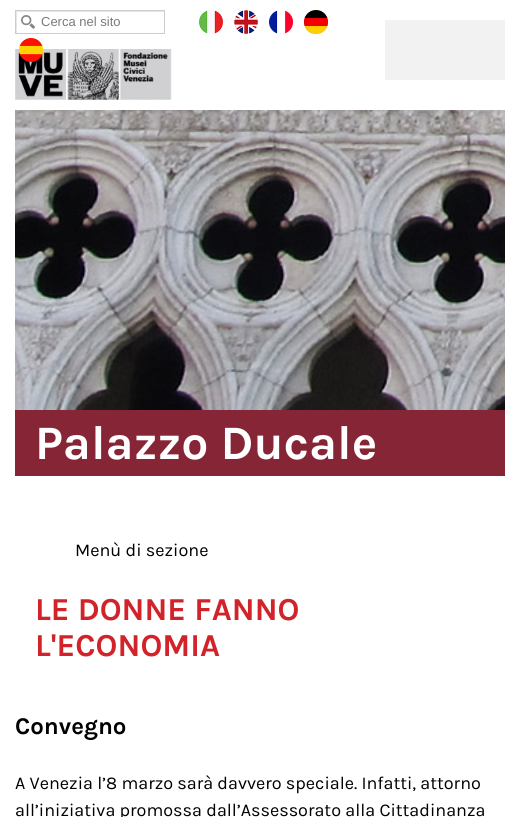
import math
import cairo


def use_color(cr, r, g, b):
  cr.set_source_rgb(r / 255, g / 255, b / 255)

def text(cr, x, y, s, family, size, color, bold=False, italic=False):
  cr.select_font_face(family, cairo.FONT_SLANT_ITALIC if italic else cairo.FONT_SLANT_NORMAL, cairo.FONT_WEIGHT_BOLD if bold else cairo.FONT_WEIGHT_NORMAL)
  cr.set_font_size(size)
  use_color(cr, *color)
  cr.move_to(x, y)
  cr.show_text(s)

def box(cr, x, y, w, h, *color):
  use_color(cr, *color)
  cr.rectangle(x, y, w, h)
  cr.fill()

def picture(cr, path, x, y, w, h):
  cr.save()
  cr.set_source_surface(cairo.ImageSurface.create_from_png(path), x, y)
  cr.rectangle(x, y, w, h)
  cr.fill()
  cr.restore()

def draw(cr):
  use_color(cr, 255, 255, 255)
  cr.paint()
  picture(cr, "img_01.png", 21, 15, 14, 14)
  cr.save()
  cr.rectangle(16, 11, 148, 22)
  cr.clip()
  use_color(cr, 230, 230, 230)
  cr.set_fill_rule(cairo.FILL_RULE_EVEN_ODD)
  cr.new_path()
  cr.move_to(-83, -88)
  cr.line_to(263, -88)
  cr.line_to(263, 132)
  cr.line_to(-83, 132)
  cr.close_path()
  cr.move_to(17, 12)
  cr.line_to(165, 12)
  cr.line_to(165, 34)
  cr.line_to(17, 34)
  cr.close_path()
  cr.fill()
  cr.restore()
  cr.rectangle(15.5, 10.5, 149, 23)
  use_color(cr, 204, 204, 204)
  cr.set_line_width(1)
  cr.stroke()
  picture(cr, "img_02.png", 199, 10, 24, 24)
  picture(cr, "img_03.png", 234, 10, 24, 24)
  picture(cr, "img_04.png", 269, 10, 24, 24)
  picture(cr, "img_05.png", 304, 10, 24, 24)
  picture(cr, "img_07.png", 15, 49, 157, 51)
  picture(cr, "img_06.png", 19, 38, 24, 24)
  box(cr, 385, 20, 120, 60, 242, 242, 242)
  picture(cr, "img_08.png", 15, 110, 490, 300)
  box(cr, 15, 410, 490, 66, 133, 37, 53)
  text(cr, 41, 26, "Cerca nel sito", "Liberation Sans", 13, (122, 122, 122))
  text(cr, 35, 459, "Palazzo Ducale", "Karla", 48, (255, 255, 255), bold=True)
  text(cr, 75, 556, "Menù di sezione", "Karla", 18, (0, 0, 0))
  text(cr, 35, 620, "LE DONNE FANNO", "Karla", 32, (210, 35, 42), bold=True)
  text(cr, 35, 656, "L'ECONOMIA", "Karla", 32, (210, 35, 42), bold=True)
  text(cr, 15, 734, "Convegno", "Karla", 24, (0, 0, 0), bold=True)
  text(cr, 15, 789, "A Venezia l’8 marzo sarà davvero speciale. Infatti, attorno", "Karla", 18, (0, 0, 0))
  text(cr, 15, 816, "all’iniziativa promossa dall’Assessorato alla Cittadinanza", "Karla", 18, (0, 0, 0))


surface = cairo.ImageSurface(cairo.FORMAT_RGB24, 520, 817)
cr = cairo.Context(surface)
options = cairo.FontOptions()
options.set_hint_metrics(cairo.HINT_METRICS_OFF)
options.set_hint_style(cairo.HINT_STYLE_NONE)
cr.set_font_options(options)
cr.set_miter_limit(4)
draw(cr)
surface.write_to_png("out.png")
